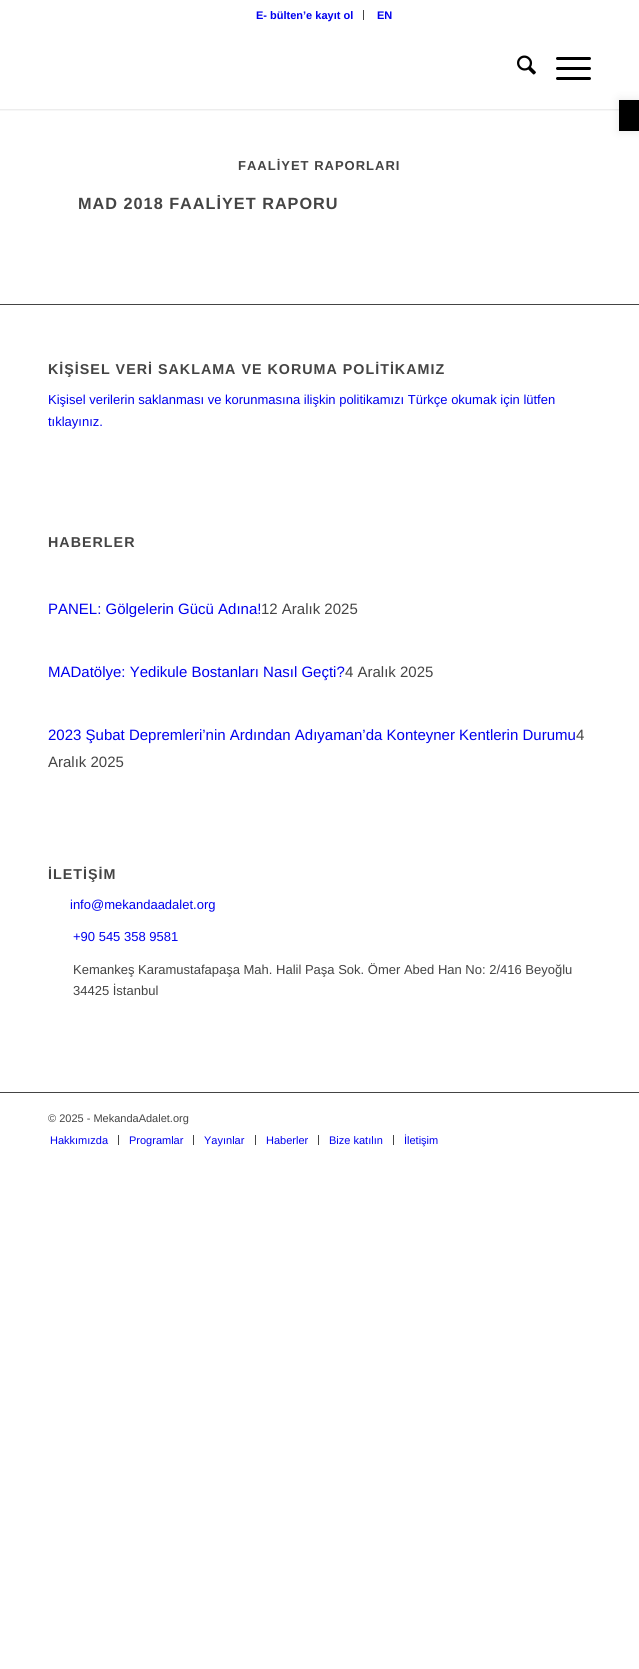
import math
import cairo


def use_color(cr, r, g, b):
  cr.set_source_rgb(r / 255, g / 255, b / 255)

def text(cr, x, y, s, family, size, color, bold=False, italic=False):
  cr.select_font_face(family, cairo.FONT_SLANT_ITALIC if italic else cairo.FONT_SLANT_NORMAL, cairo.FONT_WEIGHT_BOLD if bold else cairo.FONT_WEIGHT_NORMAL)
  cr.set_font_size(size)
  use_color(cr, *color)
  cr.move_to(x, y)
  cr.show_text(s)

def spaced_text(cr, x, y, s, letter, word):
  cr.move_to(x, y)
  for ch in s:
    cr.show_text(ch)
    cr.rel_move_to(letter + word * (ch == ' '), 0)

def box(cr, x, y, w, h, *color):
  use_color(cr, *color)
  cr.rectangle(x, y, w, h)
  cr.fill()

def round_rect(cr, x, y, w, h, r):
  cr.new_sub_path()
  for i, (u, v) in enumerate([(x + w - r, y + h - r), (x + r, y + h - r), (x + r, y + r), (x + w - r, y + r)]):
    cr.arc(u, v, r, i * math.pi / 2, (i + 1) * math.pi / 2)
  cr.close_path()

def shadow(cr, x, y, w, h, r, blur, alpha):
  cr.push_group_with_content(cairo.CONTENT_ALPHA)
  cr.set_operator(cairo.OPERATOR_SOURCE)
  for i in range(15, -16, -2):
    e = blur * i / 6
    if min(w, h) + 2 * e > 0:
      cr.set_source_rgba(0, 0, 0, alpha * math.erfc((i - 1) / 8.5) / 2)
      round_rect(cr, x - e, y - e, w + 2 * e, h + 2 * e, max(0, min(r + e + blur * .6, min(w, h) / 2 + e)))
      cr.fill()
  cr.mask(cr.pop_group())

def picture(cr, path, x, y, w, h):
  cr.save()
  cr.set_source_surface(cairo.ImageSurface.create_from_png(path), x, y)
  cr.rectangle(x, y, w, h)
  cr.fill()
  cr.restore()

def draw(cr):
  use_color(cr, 255, 255, 255)
  cr.paint()
  cr.save()
  cr.rectangle(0, 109, 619, 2)
  cr.clip()
  use_color(cr, 0, 0, 0)
  shadow(cr, -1, -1, 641, 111, 0, 1, 0.1)
  cr.restore()
  box(cr, 363, 10, 1, 10, 68, 68, 68)
  picture(cr, "img_01.png", 517, 55, 19, 20)
  use_color(cr, 0, 0, 0)
  round_rect(cr, 556, 67, 35, 3, 1.5)
  cr.fill()
  round_rect(cr, 556, 57, 35, 3, 1.5)
  cr.fill()
  round_rect(cr, 556, 77, 35, 3, 1.5)
  cr.fill()
  box(cr, 0, 304, 639, 1, 68, 68, 68)
  box(cr, 0, 1092, 639, 1, 68, 68, 68)
  box(cr, 118, 1135, 1, 10, 68, 68, 68)
  box(cr, 193, 1135, 1, 10, 68, 68, 68)
  box(cr, 255, 1135, 1, 10, 68, 68, 68)
  box(cr, 318, 1135, 1, 10, 68, 68, 68)
  box(cr, 393, 1135, 1, 10, 68, 68, 68)
  use_color(cr, 0, 0, 0)
  shadow(cr, 619, 100, 20, 31, 0, 5, 0.1)
  box(cr, 619, 100, 20, 31, 0, 0, 0)
  text(cr, 256, 19, "E- bülten’e kayıt ol", "Liberation Sans", 11, (0, 0, 238), bold=True)
  text(cr, 377, 19, "EN", "Liberation Sans", 11, (0, 0, 238), bold=True)
  cr.set_font_size(13)
  use_color(cr, 68, 68, 68)
  spaced_text(cr, 238, 170, "FAALİYET RAPORLARI", 1, 0)
  cr.set_font_size(16.25)
  spaced_text(cr, 78, 209, "MAD 2018 FAALİYET RAPORU", 1, 0)
  cr.set_font_size(14.3)
  spaced_text(cr, 48, 374, "KİŞİSEL VERİ SAKLAMA VE KORUMA POLİTİKAMIZ", 1, 0)
  text(cr, 48, 404, "Kişisel verilerin saklanması ve korunmasına ilişkin politikamızı Türkçe okumak için lütfen", "Liberation Sans", 13, (0, 0, 238))
  text(cr, 48, 426, "tıklayınız.", "Liberation Sans", 13, (0, 0, 238))
  cr.select_font_face("Liberation Sans", cairo.FONT_SLANT_NORMAL, cairo.FONT_WEIGHT_BOLD)
  cr.set_font_size(14.3)
  use_color(cr, 68, 68, 68)
  spaced_text(cr, 48, 547, "HABERLER", 1, 0)
  text(cr, 48, 614, "PANEL: Gölgelerin Gücü Adına!", "Liberation Sans", 15, (0, 0, 238))
  text(cr, 261, 614, "12 Aralık 2025", "Liberation Sans", 15, (68, 68, 68))
  text(cr, 48, 677, "MADatölye: Yedikule Bostanları Nasıl Geçti?", "Liberation Sans", 15, (0, 0, 238))
  text(cr, 345, 677, "4 Aralık 2025", "Liberation Sans", 15, (68, 68, 68))
  text(cr, 48, 740, "2023 Şubat Depremleri’nin Ardından Adıyaman’da Konteyner Kentlerin Durumu", "Liberation Sans", 15, (0, 0, 238))
  text(cr, 576, 740, "4", "Liberation Sans", 15, (68, 68, 68))
  text(cr, 48, 767, "Aralık 2025", "Liberation Sans", 15, (68, 68, 68))
  cr.select_font_face("Liberation Sans", cairo.FONT_SLANT_NORMAL, cairo.FONT_WEIGHT_BOLD)
  cr.set_font_size(14.3)
  spaced_text(cr, 48, 879, "İLETİŞİM", 1, 0)
  text(cr, 70, 909, "info@mekandaadalet.org", "Liberation Sans", 13, (0, 0, 238))
  text(cr, 73, 941, "+90 545 358 9581", "Liberation Sans", 13, (0, 0, 238))
  text(cr, 73, 974, "Kemankeş Karamustafapaşa Mah. Halil Paşa Sok. Ömer Abed Han No: 2/416 Beyoğlu", "Liberation Sans", 13, (68, 68, 68))
  text(cr, 73, 995, "34425 İstanbul", "Liberation Sans", 13, (68, 68, 68))
  text(cr, 48, 1122, "© 2025 - MekandaAdalet.org", "Liberation Sans", 11, (68, 68, 68))
  text(cr, 50, 1144, "Hakkımızda", "Liberation Sans", 11, (0, 0, 238))
  text(cr, 129, 1144, "Programlar", "Liberation Sans", 11, (0, 0, 238))
  text(cr, 204, 1144, "Yayınlar", "Liberation Sans", 11, (0, 0, 238))
  text(cr, 266, 1144, "Haberler", "Liberation Sans", 11, (0, 0, 238))
  text(cr, 329, 1144, "Bize katılın", "Liberation Sans", 11, (0, 0, 238))
  text(cr, 404, 1144, "İletişim", "Liberation Sans", 11, (0, 0, 238))


surface = cairo.ImageSurface(cairo.FORMAT_RGB24, 639, 1669)
cr = cairo.Context(surface)
options = cairo.FontOptions()
options.set_hint_metrics(cairo.HINT_METRICS_OFF)
options.set_hint_style(cairo.HINT_STYLE_NONE)
cr.set_font_options(options)
cr.set_miter_limit(4)
draw(cr)
surface.write_to_png("out.png")
